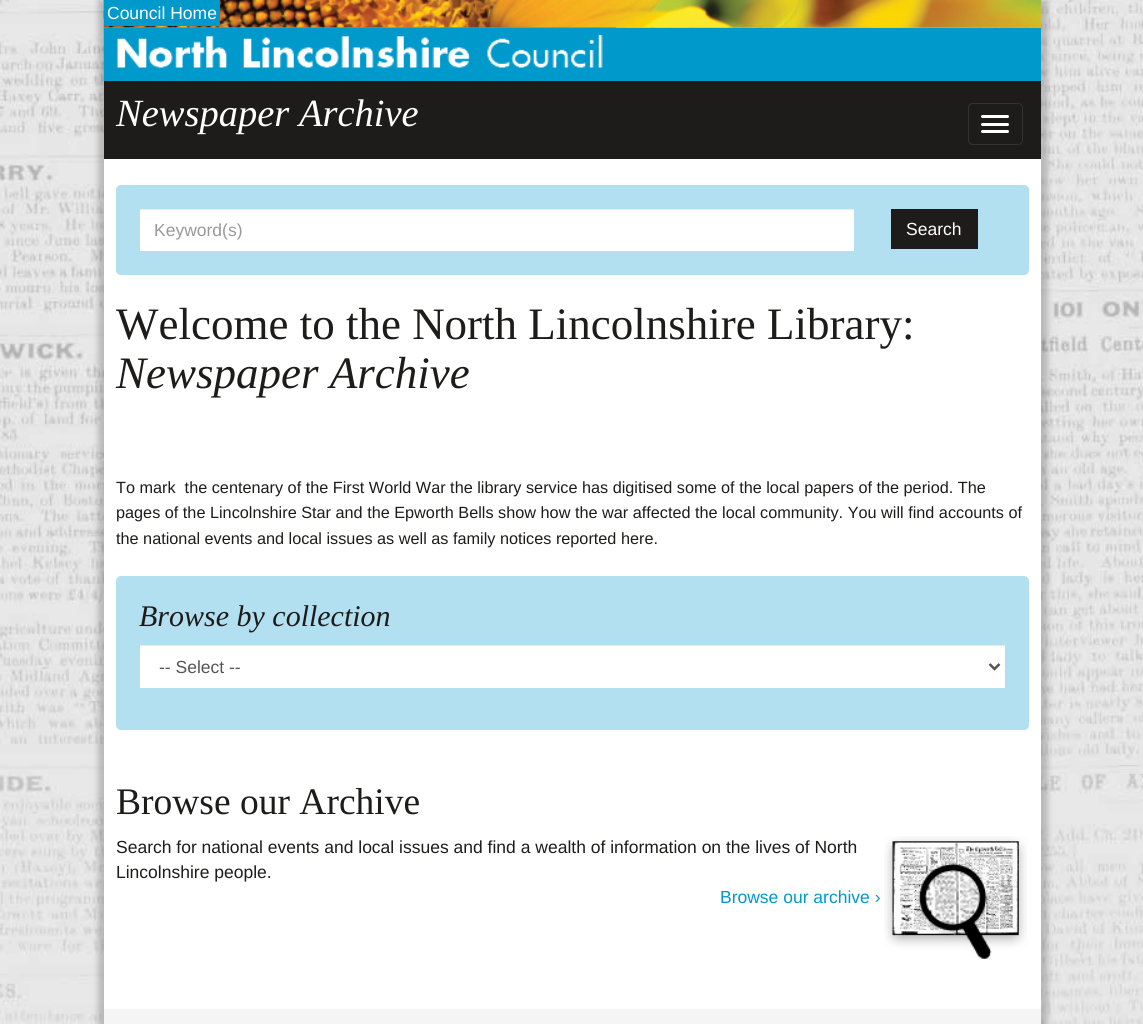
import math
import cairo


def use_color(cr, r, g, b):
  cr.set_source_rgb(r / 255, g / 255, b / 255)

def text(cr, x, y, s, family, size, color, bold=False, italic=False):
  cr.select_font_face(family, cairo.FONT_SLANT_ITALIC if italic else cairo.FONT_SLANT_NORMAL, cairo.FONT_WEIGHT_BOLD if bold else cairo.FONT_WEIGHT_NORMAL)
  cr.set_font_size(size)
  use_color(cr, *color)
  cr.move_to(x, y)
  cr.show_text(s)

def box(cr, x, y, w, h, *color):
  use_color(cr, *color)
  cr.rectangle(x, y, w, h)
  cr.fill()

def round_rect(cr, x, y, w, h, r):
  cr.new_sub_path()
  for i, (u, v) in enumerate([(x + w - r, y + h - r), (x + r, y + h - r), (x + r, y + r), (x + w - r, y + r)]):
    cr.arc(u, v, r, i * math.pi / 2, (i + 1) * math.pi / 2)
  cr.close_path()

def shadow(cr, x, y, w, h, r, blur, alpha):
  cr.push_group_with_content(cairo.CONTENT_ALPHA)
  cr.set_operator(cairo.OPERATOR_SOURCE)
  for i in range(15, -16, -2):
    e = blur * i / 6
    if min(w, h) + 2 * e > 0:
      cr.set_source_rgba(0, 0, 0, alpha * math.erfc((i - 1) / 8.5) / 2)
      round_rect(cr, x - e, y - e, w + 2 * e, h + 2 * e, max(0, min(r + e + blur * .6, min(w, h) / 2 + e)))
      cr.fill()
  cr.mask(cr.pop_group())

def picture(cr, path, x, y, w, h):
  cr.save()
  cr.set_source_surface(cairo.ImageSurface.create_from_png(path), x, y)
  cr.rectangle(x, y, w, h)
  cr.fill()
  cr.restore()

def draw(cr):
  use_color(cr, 255, 255, 255)
  cr.paint()
  picture(cr, "img_01.png", 0, 0, 1143, 1024)
  use_color(cr, 0, 0, 0)
  shadow(cr, 98, 0, 950, 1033, 0, 3, 0.2)
  picture(cr, "img_02.png", 103, 0, 939, 28)
  box(cr, 104, 0, 116, 26, 0, 153, 204)
  box(cr, 616, 28, 425, 53, 0, 153, 204)
  picture(cr, "img_03.png", 103, 27, 514, 55)
  box(cr, 104, 81, 937, 78, 29, 28, 27)
  round_rect(cr, 968.5, 103.5, 54, 41, 4.5)
  use_color(cr, 51, 51, 51)
  cr.set_line_width(1)
  cr.stroke()
  use_color(cr, 255, 255, 255)
  round_rect(cr, 981, 115, 28, 3, 1.5)
  cr.fill()
  round_rect(cr, 981, 123, 28, 3, 1.5)
  cr.fill()
  round_rect(cr, 981, 130, 28, 3, 1.5)
  cr.fill()
  box(cr, 104, 159, 937, 850, 255, 255, 255)
  use_color(cr, 178, 224, 240)
  round_rect(cr, 116, 185, 913, 90, 5)
  cr.fill()
  box(cr, 140, 210, 714, 41, 255, 255, 255)
  box(cr, 140, 209, 714, 1, 236, 236, 236)
  box(cr, 891, 209, 87, 40, 29, 28, 27)
  use_color(cr, 178, 224, 240)
  round_rect(cr, 116, 576, 913, 154, 5)
  cr.fill()
  box(cr, 140, 646, 865, 42, 255, 255, 255)
  box(cr, 140, 645, 865, 1, 236, 236, 236)
  cr.new_path()
  cr.move_to(989.5, 664)
  cr.line_to(994.5, 669)
  cr.line_to(999.5, 664)
  use_color(cr, 85, 85, 85)
  cr.set_line_width(2.5)
  cr.stroke()
  picture(cr, "img_04.png", 884, 836, 143, 123)
  box(cr, 104, 1009, 937, 15, 245, 245, 245)
  text(cr, 107, 19, "Council Home", "Liberation Sans", 17.5, (255, 255, 255))
  text(cr, 116, 126, "Newspaper Archive", "Liberation Serif", 38.5, (255, 255, 255), italic=True)
  text(cr, 154, 236, "Keyword(s)", "Liberation Sans", 17.5, (153, 153, 153))
  text(cr, 906, 235, "Search", "Liberation Sans", 17.5, (255, 255, 255))
  text(cr, 116, 339, "Welcome to the North Lincolnshire Library:", "Liberation Serif", 45, (29, 28, 27))
  text(cr, 116, 388, "Newspaper Archive", "Liberation Serif", 45, (29, 28, 27), italic=True)
  text(cr, 116, 493, "To mark  the centenary of the First World War the library service has digitised some of the local papers of the period. The", "Liberation Sans", 16.25, (29, 28, 27))
  text(cr, 116, 518, "pages of the Lincolnshire Star and the Epworth Bells show how the war affected the local community. You will find accounts of", "Liberation Sans", 16.25, (29, 28, 27))
  text(cr, 116, 544, "the national events and local issues as well as family notices reported here.", "Liberation Sans", 16.25, (29, 28, 27))
  text(cr, 139, 626, "Browse by collection", "Liberation Serif", 30, (29, 28, 27), italic=True)
  text(cr, 159, 673, "-- Select --", "Liberation Sans", 17.5, (85, 85, 85))
  text(cr, 116, 814, "Browse our Archive", "Liberation Serif", 37.5, (29, 28, 27))
  text(cr, 116, 853, "Search for national events and local issues and find a wealth of information on the lives of North", "Liberation Sans", 17.5, (29, 28, 27))
  text(cr, 116, 878, "Lincolnshire people.", "Liberation Sans", 17.5, (29, 28, 27))
  text(cr, 720, 903, "Browse our archive ›", "Liberation Sans", 17.5, (0, 153, 204))


surface = cairo.ImageSurface(cairo.FORMAT_RGB24, 1143, 1024)
cr = cairo.Context(surface)
options = cairo.FontOptions()
options.set_hint_metrics(cairo.HINT_METRICS_OFF)
options.set_hint_style(cairo.HINT_STYLE_NONE)
cr.set_font_options(options)
cr.set_miter_limit(4)
draw(cr)
surface.write_to_png("out.png")
